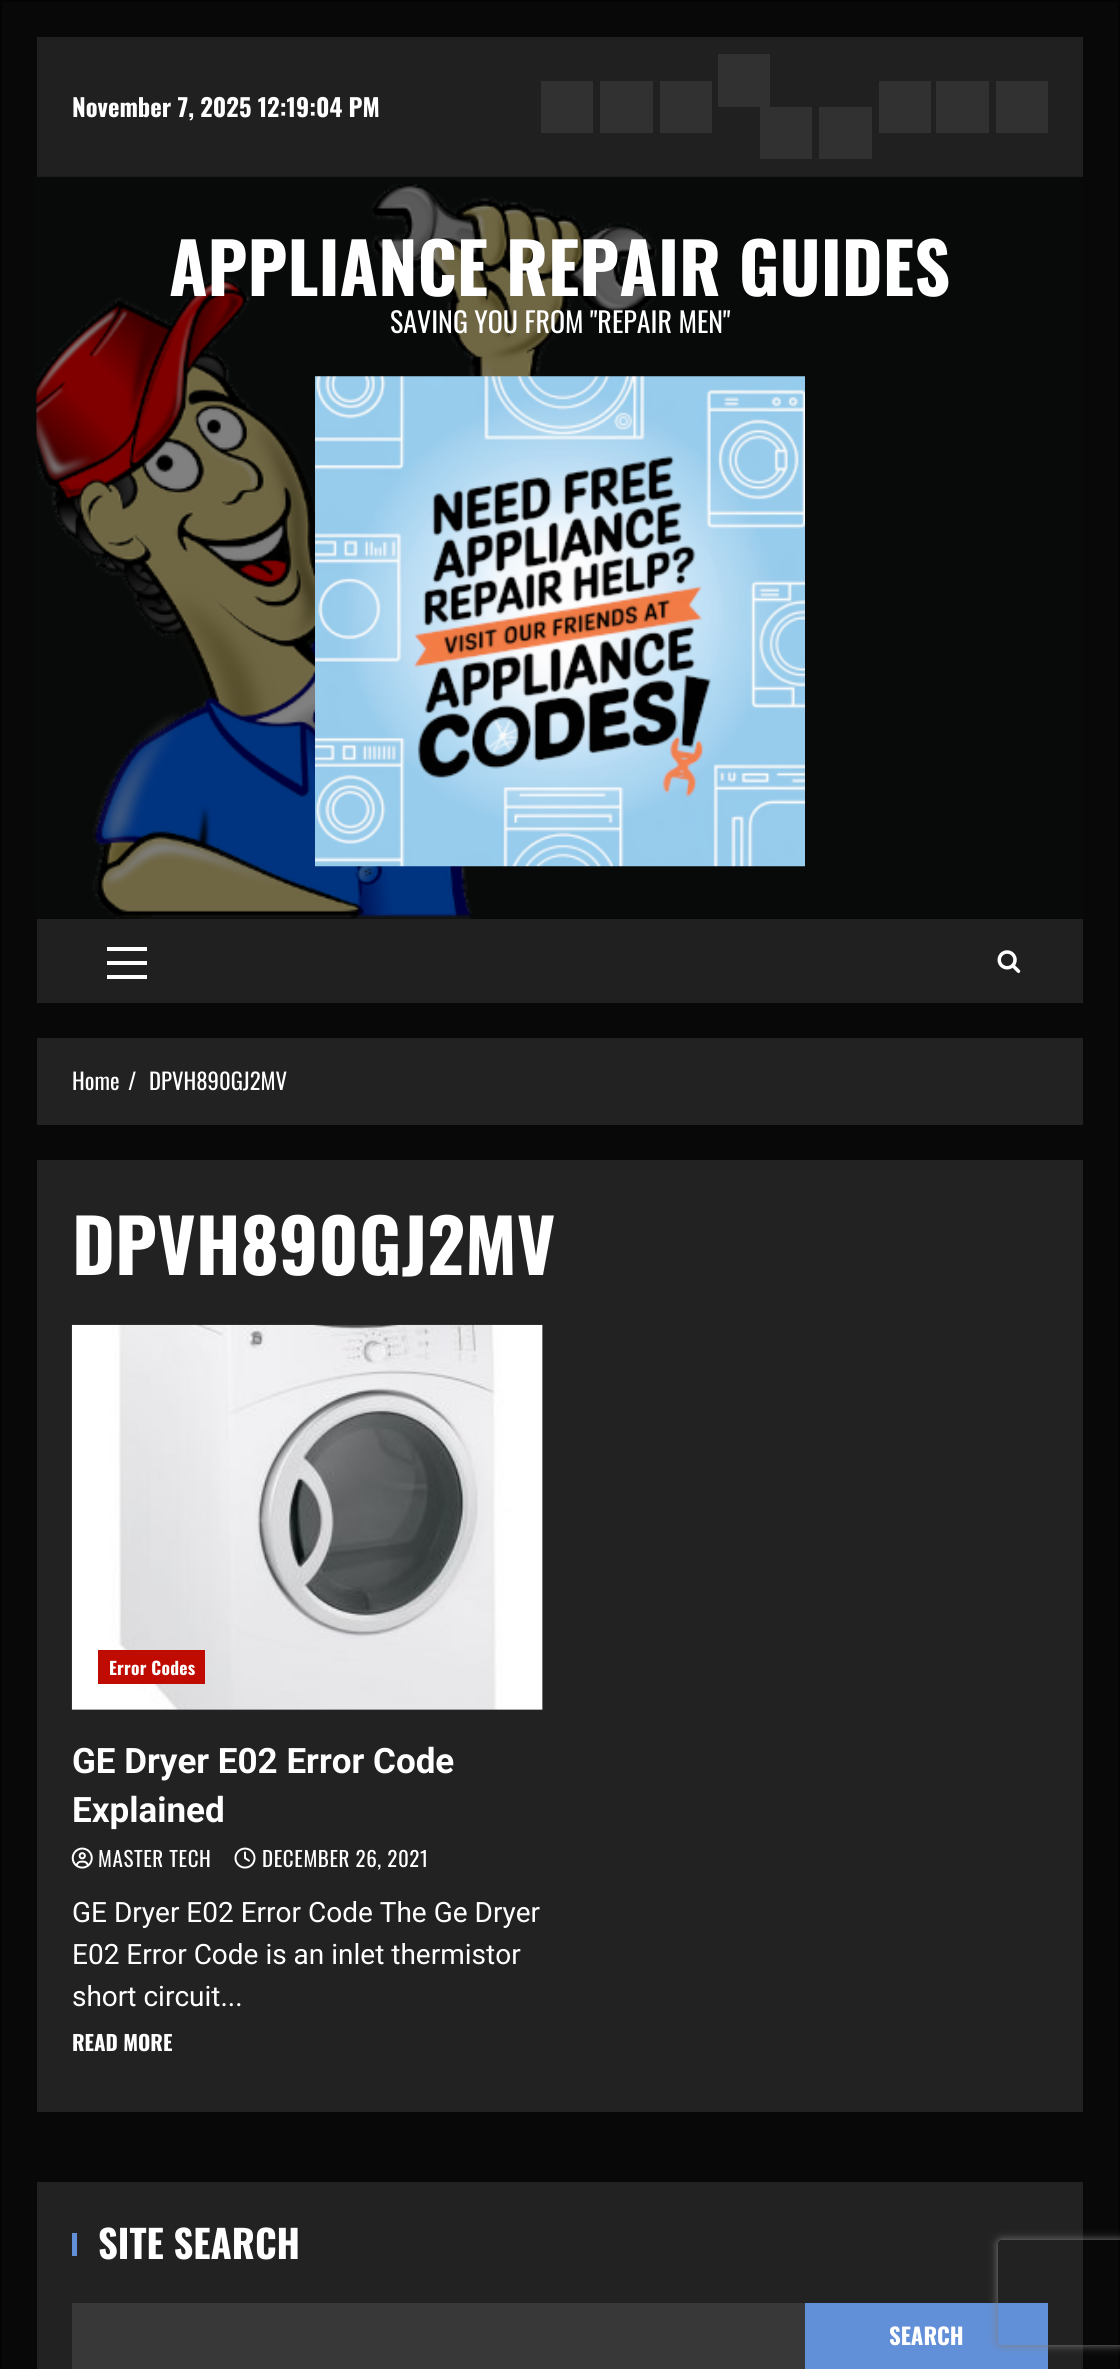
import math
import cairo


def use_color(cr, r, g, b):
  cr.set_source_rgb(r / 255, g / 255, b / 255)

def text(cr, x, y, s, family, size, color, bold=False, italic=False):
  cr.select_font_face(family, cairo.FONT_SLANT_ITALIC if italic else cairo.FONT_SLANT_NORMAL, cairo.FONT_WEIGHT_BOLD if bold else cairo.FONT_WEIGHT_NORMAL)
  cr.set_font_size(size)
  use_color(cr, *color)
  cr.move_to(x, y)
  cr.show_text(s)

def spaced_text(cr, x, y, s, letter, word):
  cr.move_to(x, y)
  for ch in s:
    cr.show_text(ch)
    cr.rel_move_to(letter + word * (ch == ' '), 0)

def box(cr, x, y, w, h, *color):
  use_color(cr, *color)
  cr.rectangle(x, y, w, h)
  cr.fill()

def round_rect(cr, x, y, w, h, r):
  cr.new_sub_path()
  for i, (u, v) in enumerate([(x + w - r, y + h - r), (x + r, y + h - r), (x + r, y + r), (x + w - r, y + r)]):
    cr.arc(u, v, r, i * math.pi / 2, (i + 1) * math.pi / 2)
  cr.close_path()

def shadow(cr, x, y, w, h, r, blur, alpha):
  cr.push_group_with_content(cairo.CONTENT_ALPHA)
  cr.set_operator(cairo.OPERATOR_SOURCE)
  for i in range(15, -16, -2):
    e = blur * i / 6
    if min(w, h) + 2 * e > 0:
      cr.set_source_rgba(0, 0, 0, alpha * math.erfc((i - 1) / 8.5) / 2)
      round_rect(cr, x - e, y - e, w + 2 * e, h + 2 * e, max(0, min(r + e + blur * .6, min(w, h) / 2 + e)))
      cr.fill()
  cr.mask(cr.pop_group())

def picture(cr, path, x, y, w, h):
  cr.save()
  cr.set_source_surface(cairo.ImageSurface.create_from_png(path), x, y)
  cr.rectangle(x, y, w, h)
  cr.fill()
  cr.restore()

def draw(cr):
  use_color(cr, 8, 8, 8)
  cr.paint()
  cr.rectangle(1, 1, 1118, 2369)
  use_color(cr, 4, 4, 4)
  cr.stroke()
  box(cr, 37, 37, 1046, 140, 32, 32, 32)
  box(cr, 541, 81, 52, 52, 49, 49, 49)
  box(cr, 600, 81, 53, 52, 49, 49, 49)
  box(cr, 660, 81, 52, 52, 49, 49, 49)
  box(cr, 718, 54, 52, 53, 49, 49, 49)
  box(cr, 760, 107, 52, 52, 49, 49, 49)
  box(cr, 819, 107, 53, 52, 49, 49, 49)
  box(cr, 879, 81, 52, 52, 49, 49, 49)
  box(cr, 936, 81, 53, 52, 49, 49, 49)
  box(cr, 996, 81, 52, 52, 49, 49, 49)
  picture(cr, "img_01.png", 36, 176, 1047, 743)
  picture(cr, "img_02.png", 315, 376, 490, 491)
  box(cr, 37, 919, 1046, 84, 32, 32, 32)
  box(cr, 107, 961, 40, 4, 255, 255, 255)
  box(cr, 107, 947, 40, 4, 255, 255, 255)
  box(cr, 107, 975, 40, 4, 255, 255, 255)
  picture(cr, "img_03.png", 997, 950, 24, 23)
  box(cr, 37, 1038, 1046, 87, 34, 34, 34)
  box(cr, 37, 1160, 1046, 952, 34, 34, 34)
  box(cr, 72, 1325, 471, 385, 66, 66, 66)
  picture(cr, "img_04.png", 71, 1324, 472, 386)
  box(cr, 98, 1650, 107, 34, 192, 12, 0)
  picture(cr, "img_05.png", 71, 1847, 22, 22)
  picture(cr, "img_06.png", 234, 1847, 22, 22)
  box(cr, 37, 2182, 1046, 187, 34, 34, 34)
  box(cr, 72, 2233, 5, 23, 97, 143, 216)
  box(cr, 72, 2303, 733, 66, 56, 56, 56)
  box(cr, 805, 2303, 243, 66, 97, 143, 216)
  cr.save()
  cr.set_fill_rule(cairo.FILL_RULE_EVEN_ODD)
  cr.new_path()
  cr.move_to(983, 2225)
  cr.line_to(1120, 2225)
  cr.line_to(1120, 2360)
  cr.line_to(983, 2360)
  cr.close_path()
  cr.move_to(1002, 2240)
  cr.line_to(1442, 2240)
  cr.curve_to(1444, 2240, 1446, 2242, 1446, 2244)
  cr.line_to(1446, 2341)
  cr.curve_to(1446, 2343, 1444, 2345, 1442, 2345)
  cr.line_to(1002, 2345)
  cr.curve_to(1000, 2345, 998, 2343, 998, 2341)
  cr.line_to(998, 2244)
  cr.curve_to(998, 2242, 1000, 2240, 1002, 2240)
  cr.close_path()
  cr.clip()
  use_color(cr, 128, 128, 128)
  shadow(cr, 998, 2240, 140, 105, 4, 4.5, 1)
  cr.restore()
  text(cr, 72, 117, "November 7, 2025 12:19:04 PM", "Oswald", 24.5, (255, 255, 255), bold=True)
  text(cr, 169, 296, "APPLIANCE REPAIR GUIDES", "Oswald", 70, (255, 255, 255), bold=True)
  text(cr, 390, 333, "SAVING YOU FROM \"REPAIR MEN\"", "Oswald", 28, (255, 255, 255))
  text(cr, 72, 1090, "Home", "Oswald", 22.75, (255, 255, 255))
  text(cr, 128, 1090, "/", "Oswald", 22.75, (255, 255, 255))
  text(cr, 149, 1090, "DPVH890GJ2MV", "Oswald", 22.75, (255, 255, 255))
  text(cr, 72, 1275, "DPVH890GJ2MV", "Oswald", 73.5, (255, 255, 255), bold=True)
  cr.set_font_size(17.5)
  spaced_text(cr, 109, 1675, "Error Codes", 0.25, 0)
  text(cr, 72, 1773, "GE Dryer E02 Error Code", "Roboto", 35, (255, 255, 255), bold=True)
  text(cr, 72, 1822, "Explained", "Roboto", 35, (255, 255, 255), bold=True)
  cr.select_font_face("Oswald")
  cr.set_font_size(21)
  spaced_text(cr, 98, 1867, "MASTER TECH", 0.6, 0)
  spaced_text(cr, 262, 1867, "DECEMBER 26, 2021", 0.6, 0)
  text(cr, 72, 1922, "GE Dryer E02 Error Code The Ge Dryer", "Roboto", 28, (255, 255, 255))
  text(cr, 72, 1964, "E02 Error Code is an inlet thermistor", "Roboto", 28, (255, 255, 255))
  text(cr, 72, 2006, "short circuit...", "Roboto", 28, (255, 255, 255))
  text(cr, 72, 2051, "READ MORE", "Oswald", 21, (255, 255, 255), bold=True)
  text(cr, 98, 2259, "SITE SEARCH", "Oswald", 38.5, (255, 255, 255), bold=True)
  text(cr, 889, 2345, "SEARCH", "Oswald", 22.75, (255, 255, 255), bold=True)


surface = cairo.ImageSurface(cairo.FORMAT_RGB24, 1120, 2369)
cr = cairo.Context(surface)
options = cairo.FontOptions()
options.set_hint_metrics(cairo.HINT_METRICS_OFF)
options.set_hint_style(cairo.HINT_STYLE_NONE)
cr.set_font_options(options)
cr.set_miter_limit(4)
draw(cr)
surface.write_to_png("out.png")
